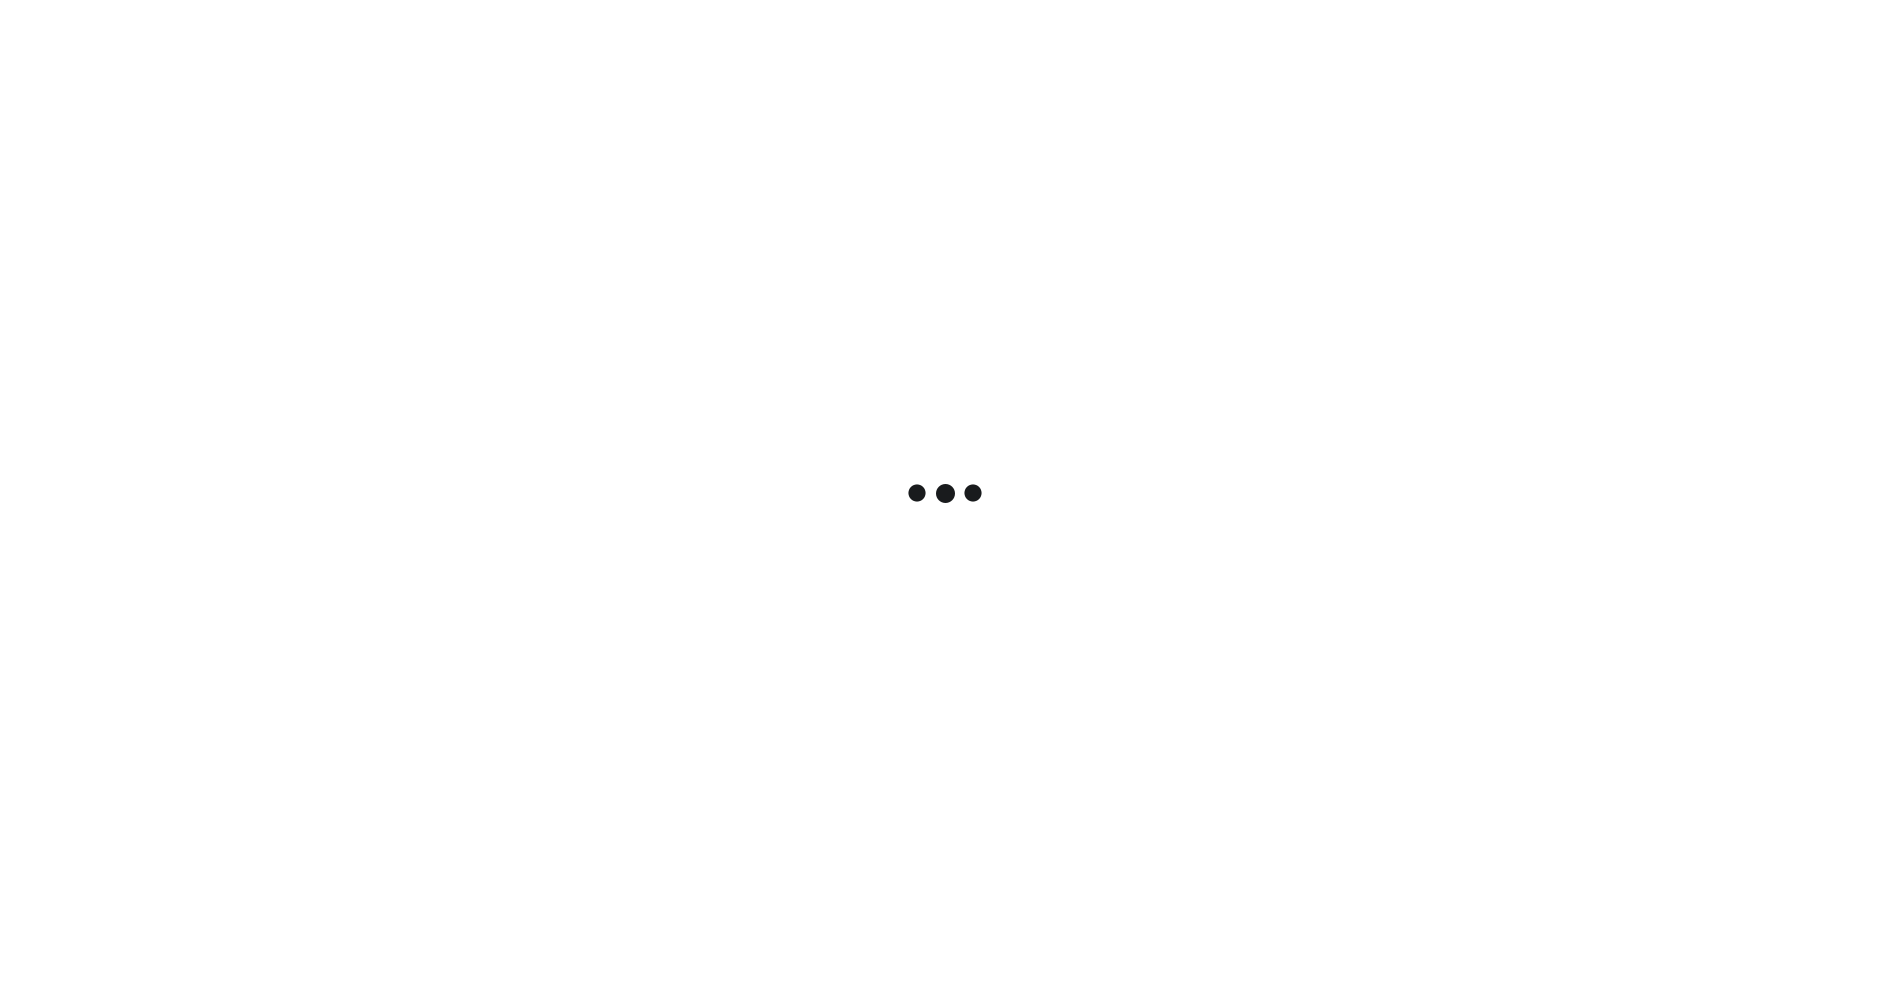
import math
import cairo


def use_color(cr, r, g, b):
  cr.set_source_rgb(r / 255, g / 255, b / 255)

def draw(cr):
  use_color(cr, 255, 255, 255)
  cr.paint()
  gradient = cairo.RadialGradient(973, 493, 0, 973, 493, 9)
  gradient.add_color_stop_rgba(0.9, 0.098, 0.106, 0.114, 1)
  gradient.add_color_stop_rgba(1, 1, 1, 1, 1)
  cr.set_source(gradient)
  cr.rectangle(964, 484, 18, 18)
  cr.fill()
  gradient = cairo.RadialGradient(917, 493, 0, 917, 493, 9)
  gradient.add_color_stop_rgba(0.9, 0.098, 0.106, 0.114, 1)
  gradient.add_color_stop_rgba(1, 1, 1, 1, 1)
  cr.set_source(gradient)
  cr.rectangle(908, 484, 18, 18)
  cr.fill()
  use_color(cr, 25, 27, 29)
  cr.arc(945.5, 493.5, 9.5, 0, 2 * math.pi)
  cr.fill()


surface = cairo.ImageSurface(cairo.FORMAT_RGB24, 1889, 986)
cr = cairo.Context(surface)
options = cairo.FontOptions()
options.set_hint_metrics(cairo.HINT_METRICS_OFF)
options.set_hint_style(cairo.HINT_STYLE_NONE)
cr.set_font_options(options)
cr.set_miter_limit(4)
draw(cr)
surface.write_to_png("out.png")
